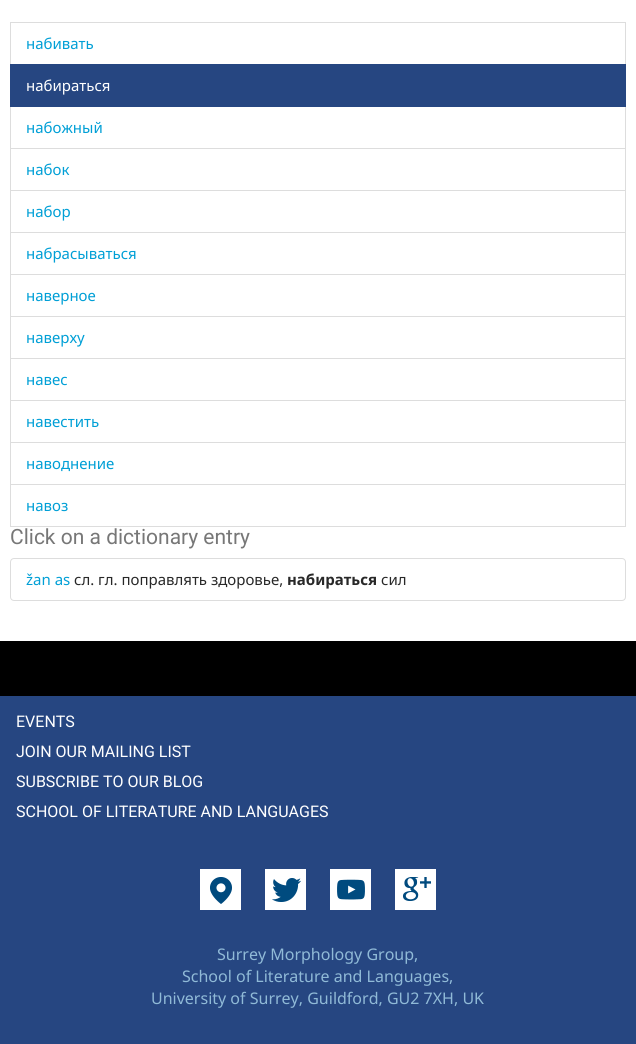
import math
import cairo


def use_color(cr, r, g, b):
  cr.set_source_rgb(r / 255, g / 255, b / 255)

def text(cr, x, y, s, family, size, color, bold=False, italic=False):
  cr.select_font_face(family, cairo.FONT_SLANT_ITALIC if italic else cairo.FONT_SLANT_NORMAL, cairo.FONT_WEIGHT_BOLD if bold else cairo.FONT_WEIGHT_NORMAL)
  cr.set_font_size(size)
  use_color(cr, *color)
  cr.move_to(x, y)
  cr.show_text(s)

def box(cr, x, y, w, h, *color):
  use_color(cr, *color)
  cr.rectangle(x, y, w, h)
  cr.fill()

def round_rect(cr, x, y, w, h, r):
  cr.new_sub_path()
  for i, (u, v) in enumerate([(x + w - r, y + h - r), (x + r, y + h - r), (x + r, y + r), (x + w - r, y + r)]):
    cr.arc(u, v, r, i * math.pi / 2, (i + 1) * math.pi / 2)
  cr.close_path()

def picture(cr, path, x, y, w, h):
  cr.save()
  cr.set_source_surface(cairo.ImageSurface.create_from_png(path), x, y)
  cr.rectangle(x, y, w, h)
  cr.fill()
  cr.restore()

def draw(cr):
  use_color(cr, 255, 255, 255)
  cr.paint()
  cr.rectangle(10.5, 22.5, 615, 42)
  use_color(cr, 221, 221, 221)
  cr.set_line_width(1)
  cr.stroke()
  cr.rectangle(10.5, 106.5, 615, 42)
  cr.stroke()
  box(cr, 10, 64, 616, 43, 38, 70, 129)
  cr.rectangle(10.5, 148.5, 615, 42)
  use_color(cr, 221, 221, 221)
  cr.stroke()
  cr.rectangle(10.5, 190.5, 615, 42)
  cr.stroke()
  cr.rectangle(10.5, 232.5, 615, 42)
  cr.stroke()
  cr.rectangle(10.5, 274.5, 615, 42)
  cr.stroke()
  cr.rectangle(10.5, 316.5, 615, 42)
  cr.stroke()
  cr.rectangle(10.5, 358.5, 615, 42)
  cr.stroke()
  cr.rectangle(10.5, 400.5, 615, 42)
  cr.stroke()
  cr.rectangle(10.5, 442.5, 615, 42)
  cr.stroke()
  cr.rectangle(10.5, 484.5, 615, 42)
  cr.stroke()
  round_rect(cr, 10.5, 558.5, 615, 42, 3.5)
  cr.stroke()
  box(cr, 0, 641, 636, 55, 0, 0, 0)
  box(cr, 0, 696, 636, 348, 38, 70, 129)
  box(cr, 200, 869, 41, 41, 255, 255, 255)
  picture(cr, "img_01.png", 210, 877, 22, 27)
  box(cr, 265, 869, 41, 41, 255, 255, 255)
  picture(cr, "img_02.png", 272, 878, 29, 24)
  box(cr, 330, 869, 41, 41, 255, 255, 255)
  picture(cr, "img_03.png", 337, 879, 28, 21)
  box(cr, 395, 869, 41, 41, 255, 255, 255)
  picture(cr, "img_04.png", 403, 877, 28, 24)
  text(cr, 26, 49, "набивать", "Noto Sans", 15, (0, 159, 214))
  text(cr, 26, 91, "набираться", "Noto Sans", 15, (255, 255, 255))
  text(cr, 26, 133, "набожный", "Noto Sans", 15, (0, 159, 214))
  text(cr, 26, 175, "набок", "Noto Sans", 15, (0, 159, 214))
  text(cr, 26, 217, "набор", "Noto Sans", 15, (0, 159, 214))
  text(cr, 26, 259, "набрасываться", "Noto Sans", 15, (0, 159, 214))
  text(cr, 26, 301, "наверное", "Noto Sans", 15, (0, 159, 214))
  text(cr, 26, 343, "наверху", "Noto Sans", 15, (0, 159, 214))
  text(cr, 26, 385, "навес", "Noto Sans", 15, (0, 159, 214))
  text(cr, 26, 427, "навестить", "Noto Sans", 15, (0, 159, 214))
  text(cr, 26, 469, "наводнение", "Noto Sans", 15, (0, 159, 214))
  text(cr, 26, 511, "навоз", "Noto Sans", 15, (0, 159, 214))
  text(cr, 10, 544, "Click on a dictionary entry", "Roboto", 21, (119, 119, 119))
  text(cr, 26, 585, "žan as", "Noto Sans", 15, (0, 159, 214))
  text(cr, 74, 585, "сл. гл. поправлять здоровье,", "Noto Sans", 15, (40, 40, 40))
  text(cr, 287, 585, "набираться", "Noto Sans", 15, (40, 40, 40), bold=True)
  text(cr, 381, 585, "сил", "Noto Sans", 15, (40, 40, 40))
  text(cr, 16, 727, "EVENTS", "Roboto", 16, (255, 255, 255))
  text(cr, 16, 757, "JOIN OUR MAILING LIST", "Roboto", 16, (255, 255, 255))
  text(cr, 16, 787, "SUBSCRIBE TO OUR BLOG", "Roboto", 16, (255, 255, 255))
  text(cr, 16, 817, "SCHOOL OF LITERATURE AND LANGUAGES", "Roboto", 16, (255, 255, 255))
  text(cr, 217, 960, "Surrey Morphology Group,", "Noto Sans", 16, (144, 186, 215))
  text(cr, 182, 982, "School of Literature and Languages,", "Noto Sans", 16, (144, 186, 215))
  text(cr, 151, 1004, "University of Surrey, Guildford, GU2 7XH, UK", "Noto Sans", 16, (144, 186, 215))


surface = cairo.ImageSurface(cairo.FORMAT_RGB24, 636, 1044)
cr = cairo.Context(surface)
options = cairo.FontOptions()
options.set_hint_metrics(cairo.HINT_METRICS_OFF)
options.set_hint_style(cairo.HINT_STYLE_NONE)
cr.set_font_options(options)
cr.set_miter_limit(4)
draw(cr)
surface.write_to_png("out.png")
